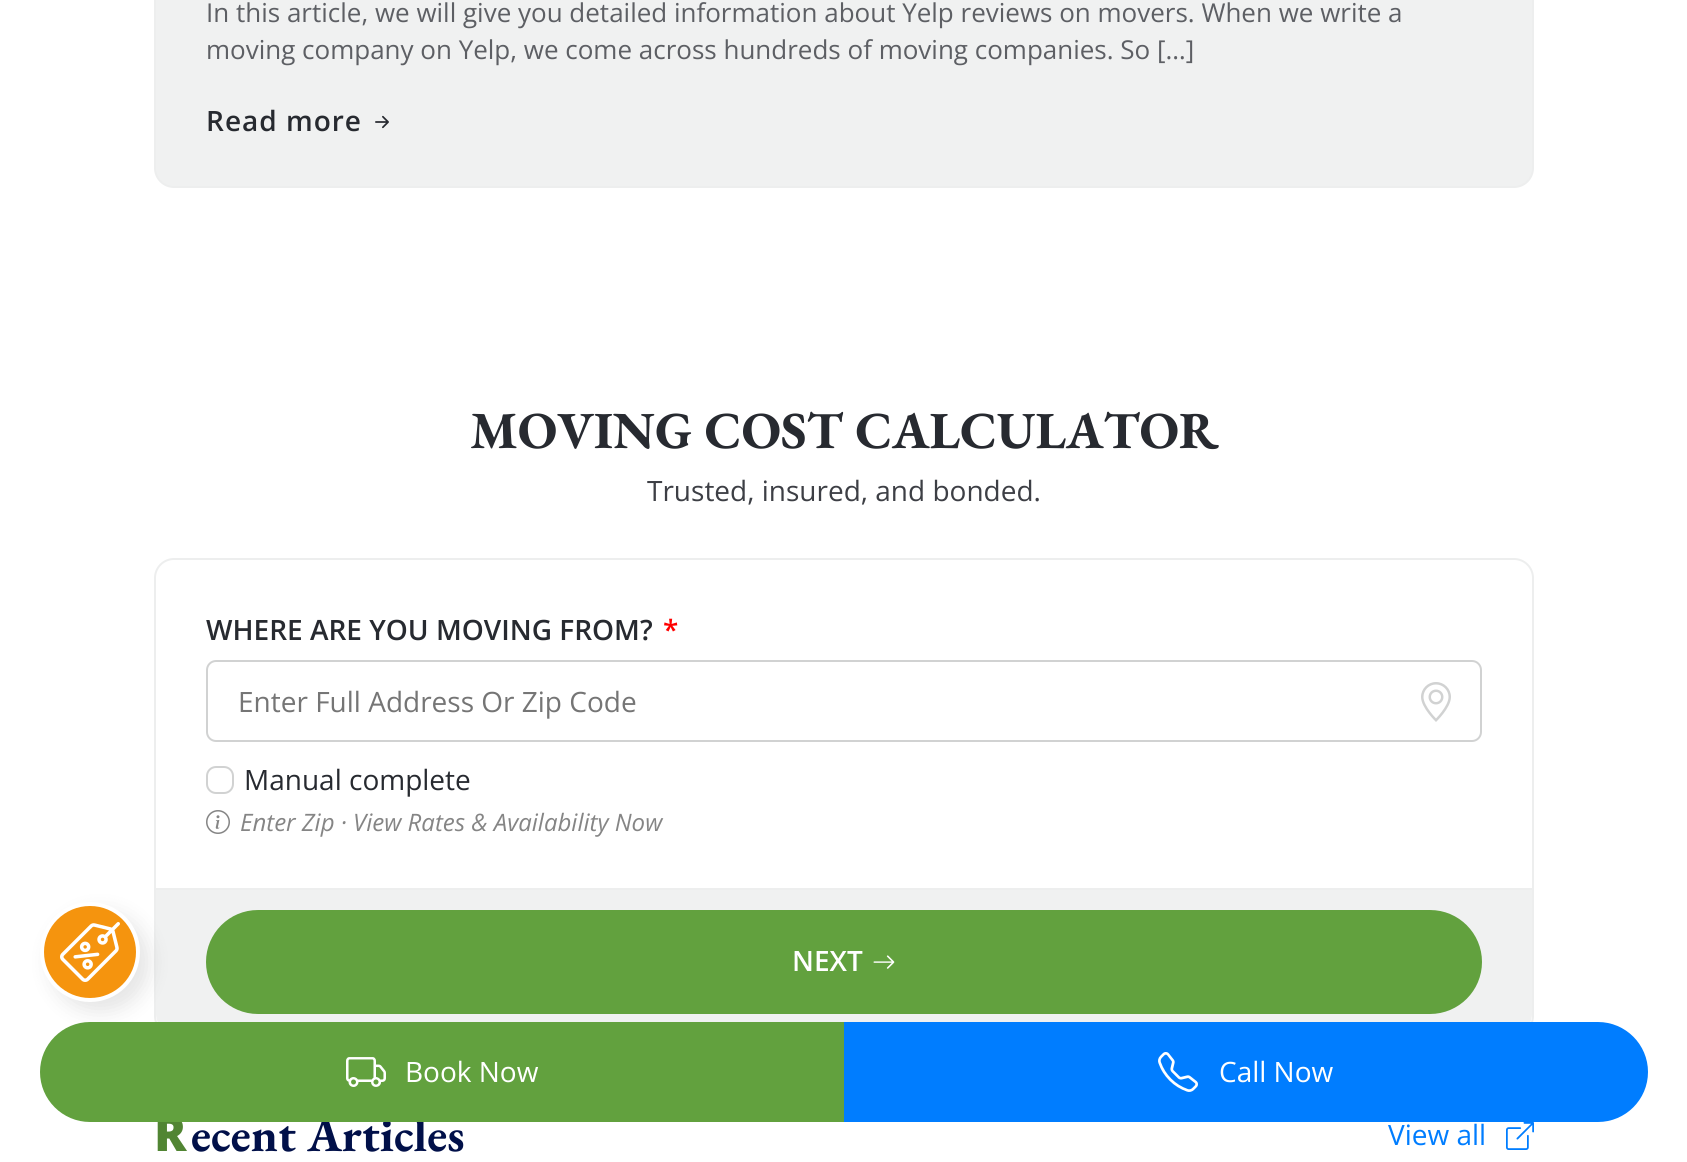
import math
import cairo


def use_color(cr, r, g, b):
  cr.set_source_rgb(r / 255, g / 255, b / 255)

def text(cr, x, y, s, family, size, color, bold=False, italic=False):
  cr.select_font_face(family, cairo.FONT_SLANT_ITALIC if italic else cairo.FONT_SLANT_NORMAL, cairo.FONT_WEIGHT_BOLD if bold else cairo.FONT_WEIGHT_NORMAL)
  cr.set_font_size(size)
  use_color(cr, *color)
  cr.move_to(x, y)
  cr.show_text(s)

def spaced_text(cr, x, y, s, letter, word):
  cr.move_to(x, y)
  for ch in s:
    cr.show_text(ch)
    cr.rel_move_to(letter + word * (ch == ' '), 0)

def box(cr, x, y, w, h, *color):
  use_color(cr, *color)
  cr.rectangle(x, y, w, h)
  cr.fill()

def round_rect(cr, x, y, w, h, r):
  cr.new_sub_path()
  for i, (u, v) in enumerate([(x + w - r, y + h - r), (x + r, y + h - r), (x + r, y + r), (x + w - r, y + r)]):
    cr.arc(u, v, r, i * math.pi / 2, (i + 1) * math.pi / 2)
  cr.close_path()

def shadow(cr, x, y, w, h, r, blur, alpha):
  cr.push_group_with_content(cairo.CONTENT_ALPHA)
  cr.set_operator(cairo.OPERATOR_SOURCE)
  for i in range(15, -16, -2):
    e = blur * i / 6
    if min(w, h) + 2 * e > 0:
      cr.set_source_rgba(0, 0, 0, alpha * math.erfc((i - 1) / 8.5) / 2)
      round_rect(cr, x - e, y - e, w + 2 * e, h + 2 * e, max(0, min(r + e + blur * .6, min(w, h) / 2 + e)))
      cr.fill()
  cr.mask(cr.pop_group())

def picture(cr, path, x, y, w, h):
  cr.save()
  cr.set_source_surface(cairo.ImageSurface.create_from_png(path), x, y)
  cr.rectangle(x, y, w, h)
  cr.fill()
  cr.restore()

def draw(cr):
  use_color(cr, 255, 255, 255)
  cr.paint()
  round_rect(cr, 155, 559, 1378, 476, 19)
  use_color(cr, 237, 238, 238)
  cr.stroke()
  use_color(cr, 240, 241, 241)
  cr.new_path()
  cr.move_to(156, 888)
  cr.line_to(1532, 888)
  cr.line_to(1532, 1014)
  cr.curve_to(1532, 1025, 1523, 1034, 1512, 1034)
  cr.line_to(176, 1034)
  cr.curve_to(165, 1034, 156, 1025, 156, 1014)
  cr.close_path()
  cr.fill()
  box(cr, 156, 888, 1376, 2, 237, 238, 238)
  use_color(cr, 0, 0, 0)
  shadow(cr, 50, 912, 100, 100, 50, 10, 0.1)
  use_color(cr, 245, 148, 14)
  cr.arc(90, 952, 48, 0, 2 * math.pi)
  cr.fill_preserve()
  use_color(cr, 255, 255, 255)
  cr.set_line_width(4)
  cr.stroke()
  picture(cr, "img_01.png", 60, 922, 60, 60)
  use_color(cr, 240, 241, 241)
  round_rect(cr, 155, -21, 1378, 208, 19)
  cr.fill_preserve()
  use_color(cr, 237, 238, 238)
  cr.set_line_width(2)
  cr.stroke()
  picture(cr, "img_02.png", 375, 115, 14, 14)
  picture(cr, "img_03.png", 1421, 682, 30, 40)
  round_rect(cr, 207, 661, 1274, 80, 9)
  use_color(cr, 209, 210, 210)
  cr.stroke()
  round_rect(cr, 207, 767, 26, 26, 9)
  cr.stroke()
  picture(cr, "img_04.png", 206, 810, 24, 24)
  use_color(cr, 98, 161, 62)
  round_rect(cr, 207, 911, 1274, 102, 51)
  cr.fill_preserve()
  cr.stroke()
  picture(cr, "img_05.png", 873, 955, 22, 14)
  picture(cr, "img_06.png", 1506, 1122, 28, 28)
  use_color(cr, 0, 125, 255)
  cr.new_path()
  cr.move_to(844, 1022)
  cr.line_to(1598, 1022)
  cr.curve_to(1625.5, 1022, 1648, 1044.5, 1648, 1072)
  cr.curve_to(1648, 1099.5, 1625.5, 1122, 1598, 1122)
  cr.line_to(844, 1122)
  cr.close_path()
  cr.fill()
  picture(cr, "img_08.png", 1158, 1052, 40, 40)
  text(cr, 206, 22, "In this article, we will give you detailed information about Yelp reviews on movers. When we write a", "Open Sans", 26, (93, 95, 100))
  text(cr, 206, 59, "moving company on Yelp, we come across hundreds of moving companies. So […]", "Open Sans", 26, (93, 95, 100))
  cr.select_font_face("Open Sans SemiBold")
  cr.set_font_size(28)
  use_color(cr, 39, 42, 48)
  spaced_text(cr, 206, 131, "Read more", 1, 0)
  text(cr, 470, 448, "MOVING COST CALCULATOR", "EB Garamond", 52, (39, 42, 48), bold=True)
  text(cr, 647, 501, "Trusted, insured, and bonded.", "Open Sans", 28, (61, 63, 69))
  text(cr, 206, 640, "WHERE ARE YOU MOVING FROM?", "Open Sans SemiBold", 28, (39, 42, 48))
  text(cr, 663, 640, "*", "Open Sans SemiBold", 28, (255, 0, 0))
  text(cr, 238, 712, "Enter Full Address Or Zip Code", "Open Sans", 28, (117, 117, 117))
  text(cr, 244, 790, "Manual complete", "Open Sans", 28, (39, 42, 48))
  text(cr, 240, 831, "Enter Zip · View Rates & Availability Now", "Open Sans", 24, (133, 133, 133), italic=True)
  text(cr, 792, 971, "NEXT", "Open Sans SemiBold", 28, (255, 255, 255))
  text(cr, 154, 1151, "R", "Noto Sans Black", 48, (81, 133, 51))
  text(cr, 191, 1151, "ecent Articles", "EB Garamond", 48, (1, 16, 73), bold=True)
  text(cr, 1388, 1145, "View all", "Open Sans", 28, (0, 125, 255))
  use_color(cr, 98, 161, 62)
  cr.new_path()
  cr.move_to(90, 1022)
  cr.line_to(844, 1022)
  cr.line_to(844, 1122)
  cr.line_to(90, 1122)
  cr.curve_to(62.5, 1122, 40, 1099.5, 40, 1072)
  cr.curve_to(40, 1044.5, 62.5, 1022, 90, 1022)
  cr.close_path()
  cr.fill()
  picture(cr, "img_07.png", 346, 1057, 40, 30)
  text(cr, 405, 1082, "Book Now", "Open Sans", 28, (255, 255, 255))
  text(cr, 1219, 1082, "Call Now", "Open Sans", 28, (255, 255, 255))


surface = cairo.ImageSurface(cairo.FORMAT_RGB24, 1687, 1162)
cr = cairo.Context(surface)
options = cairo.FontOptions()
options.set_hint_metrics(cairo.HINT_METRICS_OFF)
options.set_hint_style(cairo.HINT_STYLE_NONE)
cr.set_font_options(options)
cr.set_miter_limit(4)
draw(cr)
surface.write_to_png("out.png")
